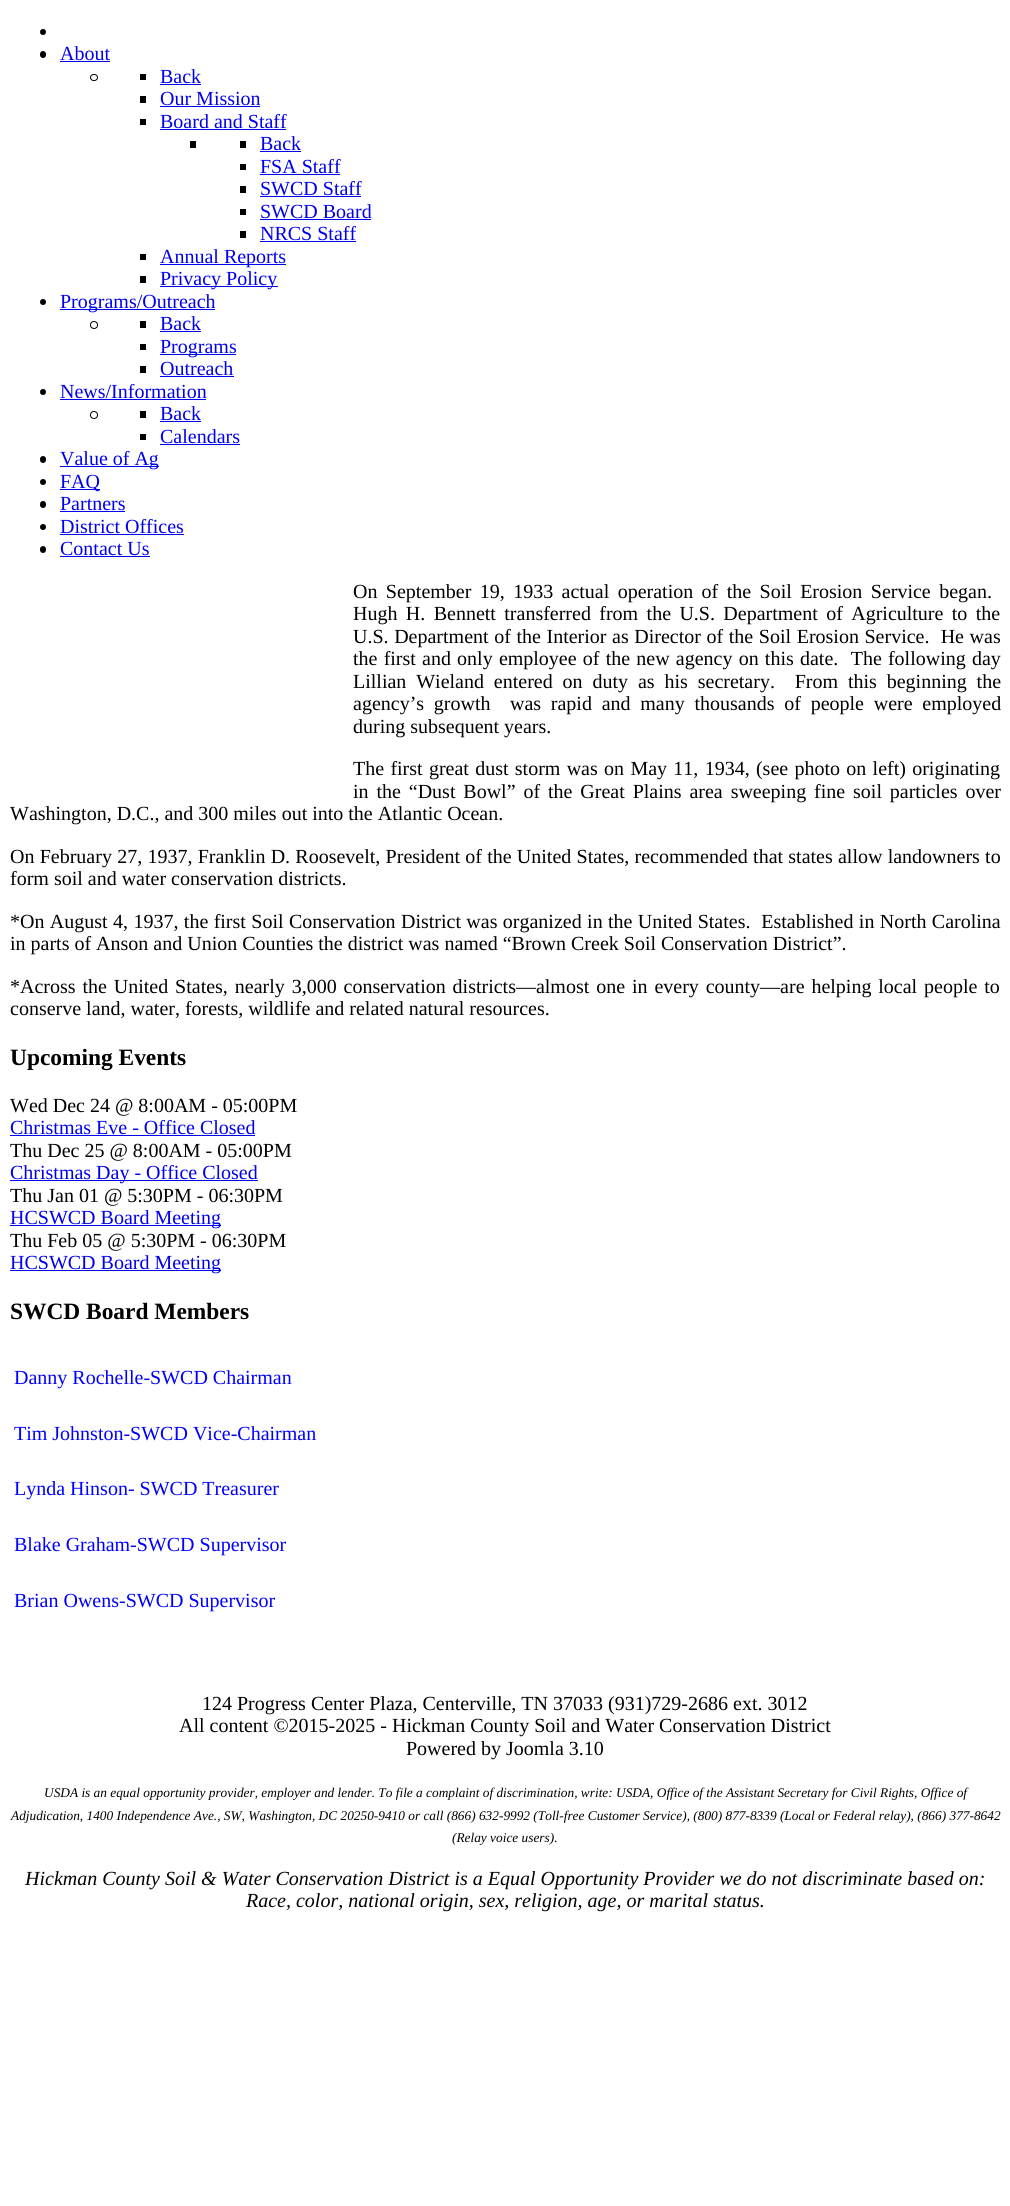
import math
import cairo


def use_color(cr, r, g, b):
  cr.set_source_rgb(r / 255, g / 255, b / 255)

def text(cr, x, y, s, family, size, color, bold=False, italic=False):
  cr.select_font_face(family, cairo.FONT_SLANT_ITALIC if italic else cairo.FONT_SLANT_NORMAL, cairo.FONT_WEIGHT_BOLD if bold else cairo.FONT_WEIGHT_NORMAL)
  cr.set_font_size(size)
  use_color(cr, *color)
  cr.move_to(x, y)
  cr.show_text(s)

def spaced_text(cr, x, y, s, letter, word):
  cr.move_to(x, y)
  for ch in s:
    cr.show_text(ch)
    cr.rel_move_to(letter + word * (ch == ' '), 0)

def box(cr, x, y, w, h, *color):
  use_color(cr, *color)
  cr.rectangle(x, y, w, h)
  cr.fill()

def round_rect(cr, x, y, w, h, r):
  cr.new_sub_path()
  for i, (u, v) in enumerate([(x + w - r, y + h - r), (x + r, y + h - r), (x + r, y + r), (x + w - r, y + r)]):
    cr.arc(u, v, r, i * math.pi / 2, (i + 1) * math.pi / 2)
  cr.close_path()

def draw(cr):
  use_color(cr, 255, 255, 255)
  cr.paint()
  use_color(cr, 0, 0, 0)
  cr.arc(43, 32, 3, 0, 2 * math.pi)
  cr.fill()
  round_rect(cr, 40, 51, 6, 7, 3)
  cr.fill()
  box(cr, 60, 61, 50, 1, 0, 0, 238)
  round_rect(cr, 90.5, 74.5, 7, 6, 3)
  use_color(cr, 0, 0, 0)
  cr.set_line_width(1)
  cr.stroke()
  box(cr, 140, 74, 6, 6, 0, 0, 0)
  box(cr, 160, 84, 41, 1, 0, 0, 238)
  box(cr, 140, 96, 6, 7, 0, 0, 0)
  box(cr, 160, 106, 100, 1, 0, 0, 238)
  box(cr, 140, 119, 6, 6, 0, 0, 0)
  box(cr, 160, 129, 126, 1, 0, 0, 238)
  box(cr, 190, 141, 6, 7, 0, 0, 0)
  box(cr, 240, 141, 6, 7, 0, 0, 0)
  box(cr, 260, 151, 41, 1, 0, 0, 238)
  box(cr, 240, 164, 6, 6, 0, 0, 0)
  box(cr, 260, 174, 80, 1, 0, 0, 238)
  box(cr, 240, 186, 6, 7, 0, 0, 0)
  box(cr, 260, 196, 101, 1, 0, 0, 238)
  box(cr, 240, 209, 6, 6, 0, 0, 0)
  box(cr, 260, 219, 111, 1, 0, 0, 238)
  box(cr, 240, 231, 6, 7, 0, 0, 0)
  box(cr, 260, 241, 96, 1, 0, 0, 238)
  box(cr, 140, 254, 6, 6, 0, 0, 0)
  box(cr, 160, 264, 126, 1, 0, 0, 238)
  box(cr, 140, 276, 6, 7, 0, 0, 0)
  box(cr, 160, 286, 118, 1, 0, 0, 238)
  use_color(cr, 0, 0, 0)
  cr.arc(43, 302, 3, 0, 2 * math.pi)
  cr.fill()
  box(cr, 60, 309, 155, 1, 0, 0, 238)
  cr.arc(94, 325, 3.5, 0, 2 * math.pi)
  use_color(cr, 0, 0, 0)
  cr.stroke()
  box(cr, 140, 321, 6, 7, 0, 0, 0)
  box(cr, 160, 331, 41, 1, 0, 0, 238)
  box(cr, 140, 344, 6, 6, 0, 0, 0)
  box(cr, 160, 354, 76, 1, 0, 0, 238)
  box(cr, 140, 366, 6, 7, 0, 0, 0)
  box(cr, 160, 376, 74, 1, 0, 0, 238)
  use_color(cr, 0, 0, 0)
  cr.arc(43, 392, 3, 0, 2 * math.pi)
  cr.fill()
  box(cr, 60, 399, 146, 1, 0, 0, 238)
  cr.arc(94, 415, 3.5, 0, 2 * math.pi)
  use_color(cr, 0, 0, 0)
  cr.stroke()
  box(cr, 140, 411, 6, 7, 0, 0, 0)
  box(cr, 160, 421, 41, 1, 0, 0, 238)
  box(cr, 140, 434, 6, 6, 0, 0, 0)
  box(cr, 160, 444, 80, 1, 0, 0, 238)
  use_color(cr, 0, 0, 0)
  round_rect(cr, 40, 456, 6, 7, 3)
  cr.fill()
  box(cr, 60, 466, 99, 1, 0, 0, 238)
  use_color(cr, 0, 0, 0)
  cr.arc(43, 482, 3, 0, 2 * math.pi)
  cr.fill()
  box(cr, 60, 489, 40, 1, 0, 0, 238)
  use_color(cr, 0, 0, 0)
  round_rect(cr, 40, 501, 6, 7, 3)
  cr.fill()
  box(cr, 60, 511, 65, 1, 0, 0, 238)
  use_color(cr, 0, 0, 0)
  cr.arc(43, 527, 3, 0, 2 * math.pi)
  cr.fill()
  box(cr, 60, 534, 124, 1, 0, 0, 238)
  use_color(cr, 0, 0, 0)
  round_rect(cr, 40, 546, 6, 7, 3)
  cr.fill()
  box(cr, 60, 556, 90, 1, 0, 0, 238)
  box(cr, 10, 1135, 245, 1, 0, 0, 238)
  box(cr, 10, 1180, 248, 1, 0, 0, 238)
  box(cr, 10, 1225, 211, 1, 0, 0, 238)
  box(cr, 10, 1270, 211, 1, 0, 0, 238)
  text(cr, 60, 60, "About", "Liberation Serif", 20, (0, 0, 238))
  text(cr, 160, 83, "Back", "Liberation Serif", 20, (0, 0, 238))
  text(cr, 160, 105, "Our Mission", "Liberation Serif", 20, (0, 0, 238))
  text(cr, 160, 128, "Board and Staff", "Liberation Serif", 20, (0, 0, 238))
  text(cr, 260, 150, "Back", "Liberation Serif", 20, (0, 0, 238))
  text(cr, 260, 173, "FSA Staff", "Liberation Serif", 20, (0, 0, 238))
  text(cr, 260, 195, "SWCD Staff", "Liberation Serif", 20, (0, 0, 238))
  text(cr, 260, 218, "SWCD Board", "Liberation Serif", 20, (0, 0, 238))
  text(cr, 260, 240, "NRCS Staff", "Liberation Serif", 20, (0, 0, 238))
  text(cr, 160, 263, "Annual Reports", "Liberation Serif", 20, (0, 0, 238))
  text(cr, 160, 285, "Privacy Policy", "Liberation Serif", 20, (0, 0, 238))
  text(cr, 60, 308, "Programs/Outreach", "Liberation Serif", 20, (0, 0, 238))
  text(cr, 160, 330, "Back", "Liberation Serif", 20, (0, 0, 238))
  text(cr, 160, 353, "Programs", "Liberation Serif", 20, (0, 0, 238))
  text(cr, 160, 375, "Outreach", "Liberation Serif", 20, (0, 0, 238))
  text(cr, 60, 398, "News/Information", "Liberation Serif", 20, (0, 0, 238))
  text(cr, 160, 420, "Back", "Liberation Serif", 20, (0, 0, 238))
  text(cr, 160, 443, "Calendars", "Liberation Serif", 20, (0, 0, 238))
  text(cr, 60, 465, "Value of Ag", "Liberation Serif", 20, (0, 0, 238))
  text(cr, 60, 488, "FAQ", "Liberation Serif", 20, (0, 0, 238))
  text(cr, 60, 510, "Partners", "Liberation Serif", 20, (0, 0, 238))
  text(cr, 60, 533, "District Offices", "Liberation Serif", 20, (0, 0, 238))
  text(cr, 60, 555, "Contact Us", "Liberation Serif", 20, (0, 0, 238))
  use_color(cr, 0, 0, 0)
  spaced_text(cr, 353, 598, "On September 19, 1933 actual operation of the Soil Erosion Service began.", 0, 3.4)
  spaced_text(cr, 353, 620, "Hugh H. Bennett transferred from the U.S. Department of Agriculture to the", 0, 3.4)
  spaced_text(cr, 353, 643, "U.S. Department of the Interior as Director of the Soil Erosion Service.  He was", 0, 0.6)
  spaced_text(cr, 353, 665, "the first and only employee of the new agency on this date.  The following day", 0, 1.2)
  spaced_text(cr, 353, 688, "Lillian Wieland entered on duty as his secretary.  From this beginning the", 0, 4.9)
  spaced_text(cr, 353, 710, "agency’s growth  was rapid and many thousands of people were employed", 0, 4.75)
  text(cr, 353, 733, "during subsequent years.", "Liberation Serif", 20, (0, 0, 0))
  spaced_text(cr, 353, 775, "The first great dust storm was on May 11, 1934, (see photo on left) originating", 0, 1.3)
  spaced_text(cr, 353, 798, "in the “Dust Bowl” of the Great Plains area sweeping fine soil particles over", 0, 2.9)
  text(cr, 10, 820, "Washington, D.C., and 300 miles out into the Atlantic Ocean.", "Liberation Serif", 20, (0, 0, 0))
  spaced_text(cr, 10, 863, "On February 27, 1937, Franklin D. Roosevelt, President of the United States, recommended that states allow landowners to", 0, 0.25)
  text(cr, 10, 885, "form soil and water conservation districts.", "Liberation Serif", 20, (0, 0, 0))
  spaced_text(cr, 10, 928, "*On August 4, 1937, the first Soil Conservation District was organized in the United States.  Established in North Carolina", 0, 0.4)
  text(cr, 10, 950, "in parts of Anson and Union Counties the district was named “Brown Creek Soil Conservation District”.", "Liberation Serif", 20, (0, 0, 0))
  spaced_text(cr, 10, 993, "*Across the United States, nearly 3,000 conservation districts—almost one in every county—are helping local people to", 0, 1.9)
  text(cr, 10, 1015, "conserve land, water, forests, wildlife and related natural resources.", "Liberation Serif", 20, (0, 0, 0))
  text(cr, 10, 1065, "Upcoming Events", "Liberation Serif", 23.4, (0, 0, 0), bold=True)
  text(cr, 10, 1112, "Wed Dec 24 @ 8:00AM - 05:00PM", "Liberation Serif", 20, (0, 0, 0))
  text(cr, 10, 1134, "Christmas Eve - Office Closed", "Liberation Serif", 20, (0, 0, 238))
  text(cr, 10, 1157, "Thu Dec 25 @ 8:00AM - 05:00PM", "Liberation Serif", 20, (0, 0, 0))
  text(cr, 10, 1179, "Christmas Day - Office Closed", "Liberation Serif", 20, (0, 0, 238))
  text(cr, 10, 1202, "Thu Jan 01 @ 5:30PM - 06:30PM", "Liberation Serif", 20, (0, 0, 0))
  text(cr, 10, 1224, "HCSWCD Board Meeting", "Liberation Serif", 20, (0, 0, 238))
  text(cr, 10, 1247, "Thu Feb 05 @ 5:30PM - 06:30PM", "Liberation Serif", 20, (0, 0, 0))
  text(cr, 10, 1269, "HCSWCD Board Meeting", "Liberation Serif", 20, (0, 0, 238))
  text(cr, 10, 1319, "SWCD Board Members", "Liberation Serif", 23.4, (0, 0, 0), bold=True)
  text(cr, 14, 1384, "Danny Rochelle-SWCD Chairman", "Liberation Serif", 20, (0, 0, 255))
  text(cr, 14, 1440, "Tim Johnston-SWCD Vice-Chairman", "Liberation Serif", 20, (0, 0, 255))
  text(cr, 14, 1495, "Lynda Hinson- SWCD Treasurer", "Liberation Serif", 20, (0, 0, 255))
  text(cr, 14, 1551, "Blake Graham-SWCD Supervisor", "Liberation Serif", 20, (0, 0, 255))
  text(cr, 14, 1607, "Brian Owens-SWCD Supervisor", "Liberation Serif", 20, (0, 0, 255))
  text(cr, 202, 1710, "124 Progress Center Plaza, Centerville, TN 37033 (931)729-2686 ext. 3012", "Liberation Serif", 20, (0, 0, 0))
  text(cr, 179, 1732, "All content ©2015-2025 - Hickman County Soil and Water Conservation District", "Liberation Serif", 20, (0, 0, 0))
  text(cr, 406, 1755, "Powered by Joomla 3.10", "Liberation Serif", 20, (0, 0, 0))
  text(cr, 44, 1797, "USDA is an equal opportunity provider, employer and lender. To file a complaint of discrimination, write: USDA, Office of the Assistant Secretary for Civil Rights, Office of", "Liberation Serif", 13.33, (0, 0, 0), italic=True)
  text(cr, 11, 1820, "Adjudication, 1400 Independence Ave., SW, Washington, DC 20250-9410 or call (866) 632-9992 (Toll-free Customer Service), (800) 877-8339 (Local or Federal relay), (866) 377-8642", "Liberation Serif", 13.33, (0, 0, 0), italic=True)
  text(cr, 452, 1842, "(Relay voice users).", "Liberation Serif", 13.33, (0, 0, 0), italic=True)
  text(cr, 25, 1885, "Hickman County Soil & Water Conservation District is a Equal Opportunity Provider we do not discriminate based on:", "Liberation Serif", 20, (0, 0, 0), italic=True)
  text(cr, 246, 1907, "Race, color, national origin, sex, religion, age, or marital status.", "Liberation Serif", 20, (0, 0, 0), italic=True)


surface = cairo.ImageSurface(cairo.FORMAT_RGB24, 1010, 2206)
cr = cairo.Context(surface)
options = cairo.FontOptions()
options.set_hint_metrics(cairo.HINT_METRICS_OFF)
options.set_hint_style(cairo.HINT_STYLE_NONE)
cr.set_font_options(options)
cr.set_miter_limit(4)
draw(cr)
surface.write_to_png("out.png")
